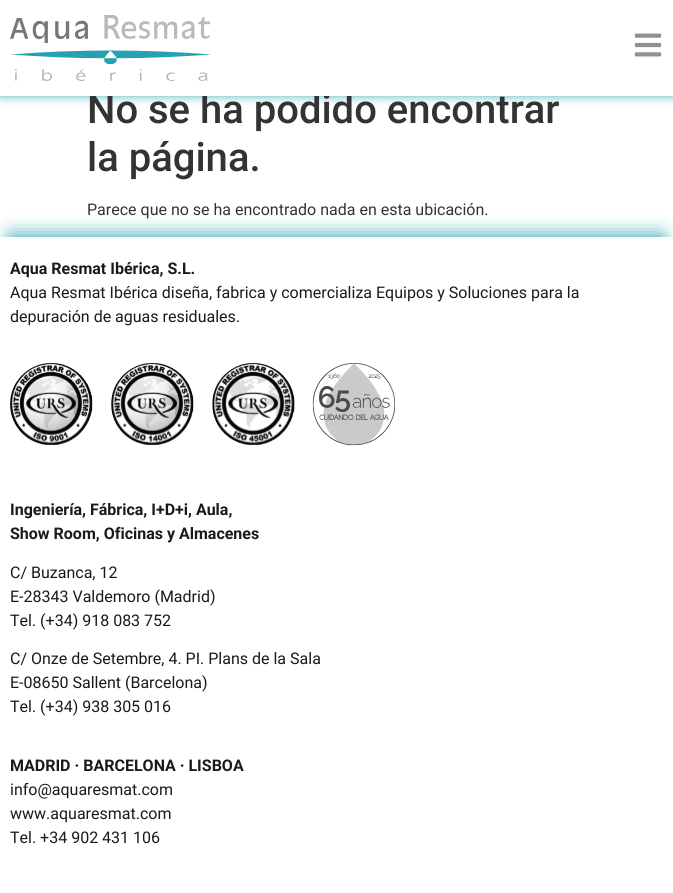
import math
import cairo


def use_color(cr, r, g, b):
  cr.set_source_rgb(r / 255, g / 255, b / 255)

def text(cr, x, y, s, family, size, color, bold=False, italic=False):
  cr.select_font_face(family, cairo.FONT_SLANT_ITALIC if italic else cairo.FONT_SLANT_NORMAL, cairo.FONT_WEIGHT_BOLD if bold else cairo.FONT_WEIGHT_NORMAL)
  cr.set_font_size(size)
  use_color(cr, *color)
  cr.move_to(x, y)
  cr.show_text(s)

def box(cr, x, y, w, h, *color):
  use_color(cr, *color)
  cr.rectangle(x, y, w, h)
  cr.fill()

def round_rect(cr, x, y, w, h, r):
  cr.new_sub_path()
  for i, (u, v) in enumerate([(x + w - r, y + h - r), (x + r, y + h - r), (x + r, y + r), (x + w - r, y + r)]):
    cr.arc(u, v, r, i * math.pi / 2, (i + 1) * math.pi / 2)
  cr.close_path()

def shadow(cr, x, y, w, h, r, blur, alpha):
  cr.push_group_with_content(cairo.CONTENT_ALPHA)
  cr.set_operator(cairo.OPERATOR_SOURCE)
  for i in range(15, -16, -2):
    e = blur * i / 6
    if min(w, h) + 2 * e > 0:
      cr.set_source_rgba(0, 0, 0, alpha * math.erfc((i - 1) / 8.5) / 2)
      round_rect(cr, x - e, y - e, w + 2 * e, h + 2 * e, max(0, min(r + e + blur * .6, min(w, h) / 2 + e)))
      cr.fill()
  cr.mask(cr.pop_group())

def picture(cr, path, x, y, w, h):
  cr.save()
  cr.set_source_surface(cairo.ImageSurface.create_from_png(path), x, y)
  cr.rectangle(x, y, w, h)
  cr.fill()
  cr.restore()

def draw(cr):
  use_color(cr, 255, 255, 255)
  cr.paint()
  use_color(cr, 38, 161, 176)
  shadow(cr, 0, 0, 673, 96, 0, 5, 0.84)
  cr.save()
  cr.rectangle(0, 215, 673, 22)
  cr.clip()
  shadow(cr, 11, 236, 651, 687, 0, 10, 1)
  cr.restore()
  picture(cr, "img_03.png", 10, 363, 386, 83)
  text(cr, 87, 123, "No se ha podido encontrar", "Roboto Medium", 40, (51, 51, 51))
  box(cr, 0, 0, 673, 96, 255, 255, 255)
  picture(cr, "img_02.png", 634, 33, 28, 24)
  picture(cr, "img_01.png", 10, 15, 201, 66)
  text(cr, 87, 171, "la página.", "Roboto Medium", 40, (51, 51, 51))
  text(cr, 87, 215, "Parece que no se ha encontrado nada en esta ubicación.", "Roboto", 16, (51, 51, 51))
  text(cr, 10, 274, "Aqua Resmat Ibérica, S.L.", "Roboto", 16, (26, 26, 26), bold=True)
  text(cr, 10, 298, "Aqua Resmat Ibérica diseña, fabrica y comercializa Equipos y Soluciones para la", "Roboto", 16, (26, 26, 26))
  text(cr, 10, 322, "depuración de aguas residuales.", "Roboto", 16, (26, 26, 26))
  text(cr, 10, 515, "Ingeniería, Fábrica, I+D+i, Aula,", "Roboto", 16, (26, 26, 26), bold=True)
  text(cr, 10, 539, "Show Room, Oficinas y Almacenes", "Roboto", 16, (26, 26, 26), bold=True)
  text(cr, 10, 578, "C/ Buzanca, 12", "Roboto", 16, (26, 26, 26))
  text(cr, 10, 602, "E-28343 Valdemoro (Madrid)", "Roboto", 16, (26, 26, 26))
  text(cr, 10, 626, "Tel. (+34) 918 083 752", "Roboto", 16, (26, 26, 26))
  text(cr, 10, 664, "C/ Onze de Setembre, 4. PI. Plans de la Sala", "Roboto", 16, (26, 26, 26))
  text(cr, 10, 688, "E-08650 Sallent (Barcelona)", "Roboto", 16, (26, 26, 26))
  text(cr, 10, 712, "Tel. (+34) 938 305 016", "Roboto", 16, (26, 26, 26))
  text(cr, 10, 771, "MADRID · BARCELONA · LISBOA", "Roboto", 16, (26, 26, 26), bold=True)
  text(cr, 10, 795, "info@aquaresmat.com", "Roboto", 16, (26, 26, 26))
  text(cr, 10, 819, "www.aquaresmat.com", "Roboto", 16, (26, 26, 26))
  text(cr, 10, 843, "Tel. +34 902 431 106", "Roboto", 16, (26, 26, 26))


surface = cairo.ImageSurface(cairo.FORMAT_RGB24, 673, 893)
cr = cairo.Context(surface)
options = cairo.FontOptions()
options.set_hint_metrics(cairo.HINT_METRICS_OFF)
options.set_hint_style(cairo.HINT_STYLE_NONE)
cr.set_font_options(options)
cr.set_miter_limit(4)
draw(cr)
surface.write_to_png("out.png")
